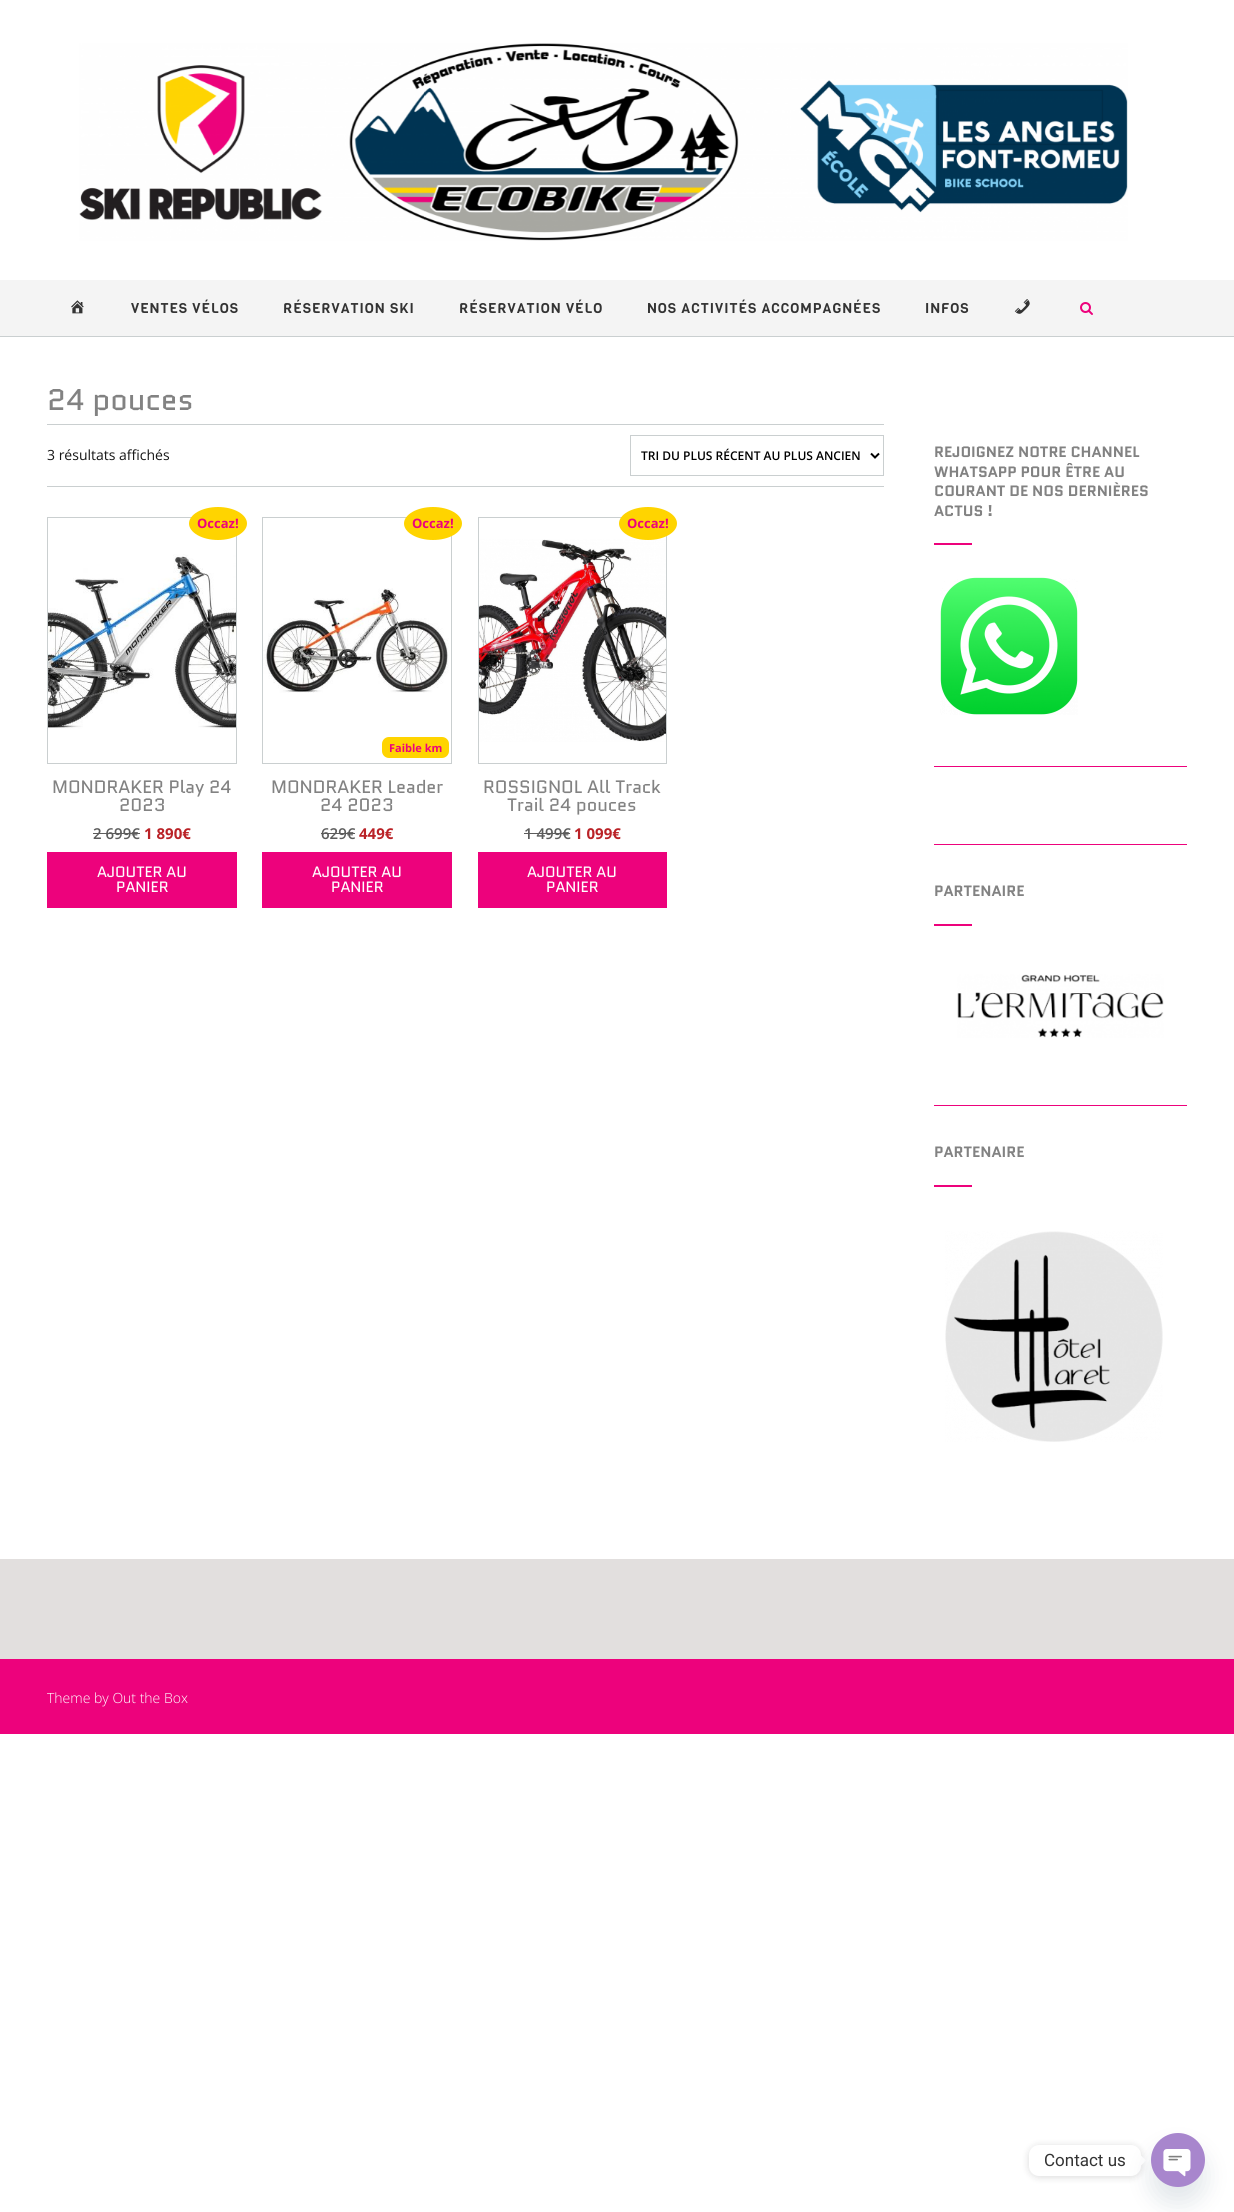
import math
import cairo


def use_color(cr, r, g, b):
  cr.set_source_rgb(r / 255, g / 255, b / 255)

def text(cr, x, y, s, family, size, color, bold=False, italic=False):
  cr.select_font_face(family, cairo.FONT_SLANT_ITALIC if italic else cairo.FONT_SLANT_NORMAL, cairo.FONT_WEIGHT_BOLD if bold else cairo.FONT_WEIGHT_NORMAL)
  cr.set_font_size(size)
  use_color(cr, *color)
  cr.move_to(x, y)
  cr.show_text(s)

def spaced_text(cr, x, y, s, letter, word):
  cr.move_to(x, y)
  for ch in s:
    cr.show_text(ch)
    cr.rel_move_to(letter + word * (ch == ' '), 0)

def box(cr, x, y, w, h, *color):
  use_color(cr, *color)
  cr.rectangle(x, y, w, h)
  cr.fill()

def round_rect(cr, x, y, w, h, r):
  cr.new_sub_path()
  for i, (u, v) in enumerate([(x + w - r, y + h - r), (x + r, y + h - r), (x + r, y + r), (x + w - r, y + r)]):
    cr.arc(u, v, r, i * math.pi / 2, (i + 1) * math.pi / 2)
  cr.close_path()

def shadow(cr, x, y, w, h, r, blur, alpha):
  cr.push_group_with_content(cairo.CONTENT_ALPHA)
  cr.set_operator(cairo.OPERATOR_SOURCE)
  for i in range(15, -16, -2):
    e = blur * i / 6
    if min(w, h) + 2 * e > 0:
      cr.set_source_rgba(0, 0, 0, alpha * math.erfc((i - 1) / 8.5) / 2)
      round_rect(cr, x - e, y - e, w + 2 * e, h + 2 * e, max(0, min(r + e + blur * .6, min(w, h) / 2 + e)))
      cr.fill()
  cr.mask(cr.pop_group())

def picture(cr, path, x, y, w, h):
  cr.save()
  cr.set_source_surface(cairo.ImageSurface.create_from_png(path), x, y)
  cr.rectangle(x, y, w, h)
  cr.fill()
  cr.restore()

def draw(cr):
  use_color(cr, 255, 255, 255)
  cr.paint()
  picture(cr, "img_01.png", 79, 43, 1049, 198)
  box(cr, 0, 280, 1234, 56, 244, 244, 244)
  box(cr, 0, 336, 1234, 1, 202, 207, 208)
  picture(cr, "img_02.png", 71, 300, 13, 14)
  picture(cr, "img_03.png", 1014, 299, 16, 15)
  picture(cr, "img_04.png", 1080, 302, 13, 13)
  box(cr, 47, 424, 837, 1, 202, 207, 208)
  box(cr, 47, 486, 837, 1, 202, 207, 208)
  cr.rectangle(630.5, 435.5, 253, 40)
  cr.set_line_width(1)
  cr.stroke()
  cr.new_path()
  cr.move_to(871, 453.5)
  cr.line_to(875, 457.5)
  cr.line_to(879, 453.5)
  use_color(cr, 0, 0, 0)
  cr.set_line_width(2)
  cr.stroke()
  cr.rectangle(47.5, 517.5, 189, 246)
  use_color(cr, 202, 207, 208)
  cr.set_line_width(1)
  cr.stroke()
  picture(cr, "img_05.png", 48, 554, 188, 175)
  use_color(cr, 255, 212, 0)
  cr.new_path()
  cr.move_to(218, 507)
  cr.curve_to(234, 507, 247, 514.5, 247, 523.5)
  cr.curve_to(247, 532.5, 234, 540, 218, 540)
  cr.curve_to(202, 540, 189, 532.5, 189, 523.5)
  cr.curve_to(189, 514.5, 202, 507, 218, 507)
  cr.close_path()
  cr.fill()
  box(cr, 93, 833, 47, 1, 92, 92, 92)
  box(cr, 47, 852, 190, 56, 237, 2, 124)
  cr.rectangle(262.5, 517.5, 189, 246)
  use_color(cr, 202, 207, 208)
  cr.stroke()
  picture(cr, "img_06.png", 263, 588, 186, 105)
  use_color(cr, 255, 212, 0)
  cr.new_path()
  cr.move_to(433, 507)
  cr.curve_to(449, 507, 462, 514.5, 462, 523.5)
  cr.curve_to(462, 532.5, 449, 540, 433, 540)
  cr.curve_to(417, 540, 404, 532.5, 404, 523.5)
  cr.curve_to(404, 514.5, 417, 507, 433, 507)
  cr.close_path()
  cr.fill()
  round_rect(cr, 382, 737, 67, 21, 7)
  cr.fill()
  box(cr, 321, 833, 34, 1, 92, 92, 92)
  box(cr, 262, 852, 190, 56, 237, 2, 124)
  cr.rectangle(478.5, 517.5, 188, 246)
  use_color(cr, 202, 207, 208)
  cr.stroke()
  picture(cr, "img_07.png", 479, 539, 187, 203)
  use_color(cr, 255, 212, 0)
  cr.new_path()
  cr.move_to(648, 507)
  cr.curve_to(664, 507, 677, 514.5, 677, 523.5)
  cr.curve_to(677, 532.5, 664, 540, 648, 540)
  cr.curve_to(632, 540, 619, 532.5, 619, 523.5)
  cr.curve_to(619, 514.5, 632, 507, 648, 507)
  cr.close_path()
  cr.fill()
  box(cr, 524, 833, 46, 1, 92, 92, 92)
  box(cr, 478, 852, 189, 56, 237, 2, 124)
  box(cr, 934, 766, 253, 1, 237, 2, 124)
  box(cr, 934, 543, 38, 2, 237, 2, 124)
  picture(cr, "img_08.png", 940, 577, 138, 138)
  box(cr, 934, 844, 253, 1, 237, 2, 124)
  box(cr, 934, 1105, 253, 1, 237, 2, 124)
  box(cr, 934, 924, 38, 2, 237, 2, 124)
  picture(cr, "img_09.png", 957, 974, 207, 64)
  box(cr, 934, 1185, 38, 2, 237, 2, 124)
  picture(cr, "img_10.png", 945, 1231, 218, 211)
  box(cr, 0, 1559, 1234, 100, 226, 223, 222)
  box(cr, 0, 1659, 1234, 75, 237, 2, 124)
  use_color(cr, 0, 0, 0)
  shadow(cr, 1029, 2146, 112, 31, 10, 4, 0.15)
  use_color(cr, 255, 255, 255)
  round_rect(cr, 1029, 2145, 112, 31, 10)
  cr.fill()
  cr.new_path()
  cr.move_to(1141, 2165.5)
  cr.line_to(1141, 2155.5)
  cr.line_to(1146, 2160.5)
  cr.close_path()
  cr.fill()
  use_color(cr, 73, 104, 126)
  shadow(cr, 1151, 2149, 54, 54, 27, 12, 0.16)
  picture(cr, "img_11.png", 1151, 2133, 54, 54)
  cr.select_font_face("Viga")
  cr.set_font_size(14)
  use_color(cr, 51, 51, 51)
  spaced_text(cr, 131, 313, "VENTES VÉLOS", 1, 0)
  spaced_text(cr, 283, 313, "RÉSERVATION SKI", 1, 0)
  spaced_text(cr, 459, 313, "RÉSERVATION VÉLO", 1, 0)
  spaced_text(cr, 647, 313, "NOS ACTIVITÉS ACCOMPAGNÉES", 1, 0)
  spaced_text(cr, 925, 313, "INFOS", 1, 0)
  text(cr, 47, 410, "24 pouces", "Quantico", 30, (130, 130, 130))
  text(cr, 47, 460, "3 résultats affichés", "Open Sans", 14, (22, 22, 22))
  text(cr, 641, 460, "TRI DU PLUS RÉCENT AU PLUS ANCIEN", "Open Sans SemiBold", 12, (0, 0, 0))
  text(cr, 197, 528, "Occaz!", "Open Sans", 13, (237, 3, 124), bold=True)
  text(cr, 52, 793, "MONDRAKER Play 24", "Quantico", 18, (130, 130, 130))
  text(cr, 119, 811, "2023", "Quantico", 18, (130, 130, 130))
  text(cr, 93, 839, "2 699€", "Open Sans SemiBold", 15, (92, 92, 92))
  text(cr, 144, 839, "1 890€", "Open Sans", 15, (186, 34, 39), bold=True)
  text(cr, 97, 877, "AJOUTER AU", "Quantico", 15, (255, 255, 255))
  text(cr, 116, 892, "PANIER", "Quantico", 15, (255, 255, 255))
  text(cr, 412, 528, "Occaz!", "Open Sans", 13, (237, 3, 124), bold=True)
  text(cr, 389, 752, "Faible km", "Open Sans", 11, (237, 3, 124), bold=True)
  text(cr, 271, 793, "MONDRAKER Leader", "Quantico", 18, (130, 130, 130))
  text(cr, 320, 811, "24 2023", "Quantico", 18, (130, 130, 130))
  text(cr, 321, 839, "629€", "Open Sans SemiBold", 15, (92, 92, 92))
  text(cr, 359, 839, "449€", "Open Sans", 15, (186, 34, 39), bold=True)
  text(cr, 312, 877, "AJOUTER AU", "Quantico", 15, (255, 255, 255))
  text(cr, 331, 892, "PANIER", "Quantico", 15, (255, 255, 255))
  text(cr, 627, 528, "Occaz!", "Open Sans", 13, (237, 3, 124), bold=True)
  text(cr, 483, 793, "ROSSIGNOL All Track", "Quantico", 18, (130, 130, 130))
  text(cr, 507, 811, "Trail 24 pouces", "Quantico", 18, (130, 130, 130))
  text(cr, 524, 839, "1 499€", "Open Sans SemiBold", 15, (92, 92, 92))
  text(cr, 574, 839, "1 099€", "Open Sans", 15, (186, 34, 39), bold=True)
  text(cr, 527, 877, "AJOUTER AU", "Quantico", 15, (255, 255, 255))
  text(cr, 546, 892, "PANIER", "Quantico", 15, (255, 255, 255))
  text(cr, 934, 457, "REJOIGNEZ NOTRE CHANNEL", "Quantico", 15, (130, 130, 130), bold=True)
  text(cr, 934, 477, "WHATSAPP POUR ÊTRE AU", "Quantico", 15, (130, 130, 130), bold=True)
  text(cr, 934, 496, "COURANT DE NOS DERNIÈRES", "Quantico", 15, (130, 130, 130), bold=True)
  text(cr, 934, 516, "ACTUS !", "Quantico", 15, (130, 130, 130), bold=True)
  text(cr, 934, 896, "PARTENAIRE", "Quantico", 15, (130, 130, 130), bold=True)
  text(cr, 934, 1157, "PARTENAIRE", "Quantico", 15, (130, 130, 130), bold=True)
  text(cr, 47, 1703, "Theme by Out the Box", "Open Sans Light", 14, (255, 255, 255))
  text(cr, 1044, 2166, "Contact us", "Roboto", 17, (51, 51, 51))


surface = cairo.ImageSurface(cairo.FORMAT_RGB24, 1234, 2212)
cr = cairo.Context(surface)
options = cairo.FontOptions()
options.set_hint_metrics(cairo.HINT_METRICS_OFF)
options.set_hint_style(cairo.HINT_STYLE_NONE)
cr.set_font_options(options)
cr.set_miter_limit(4)
draw(cr)
surface.write_to_png("out.png")
